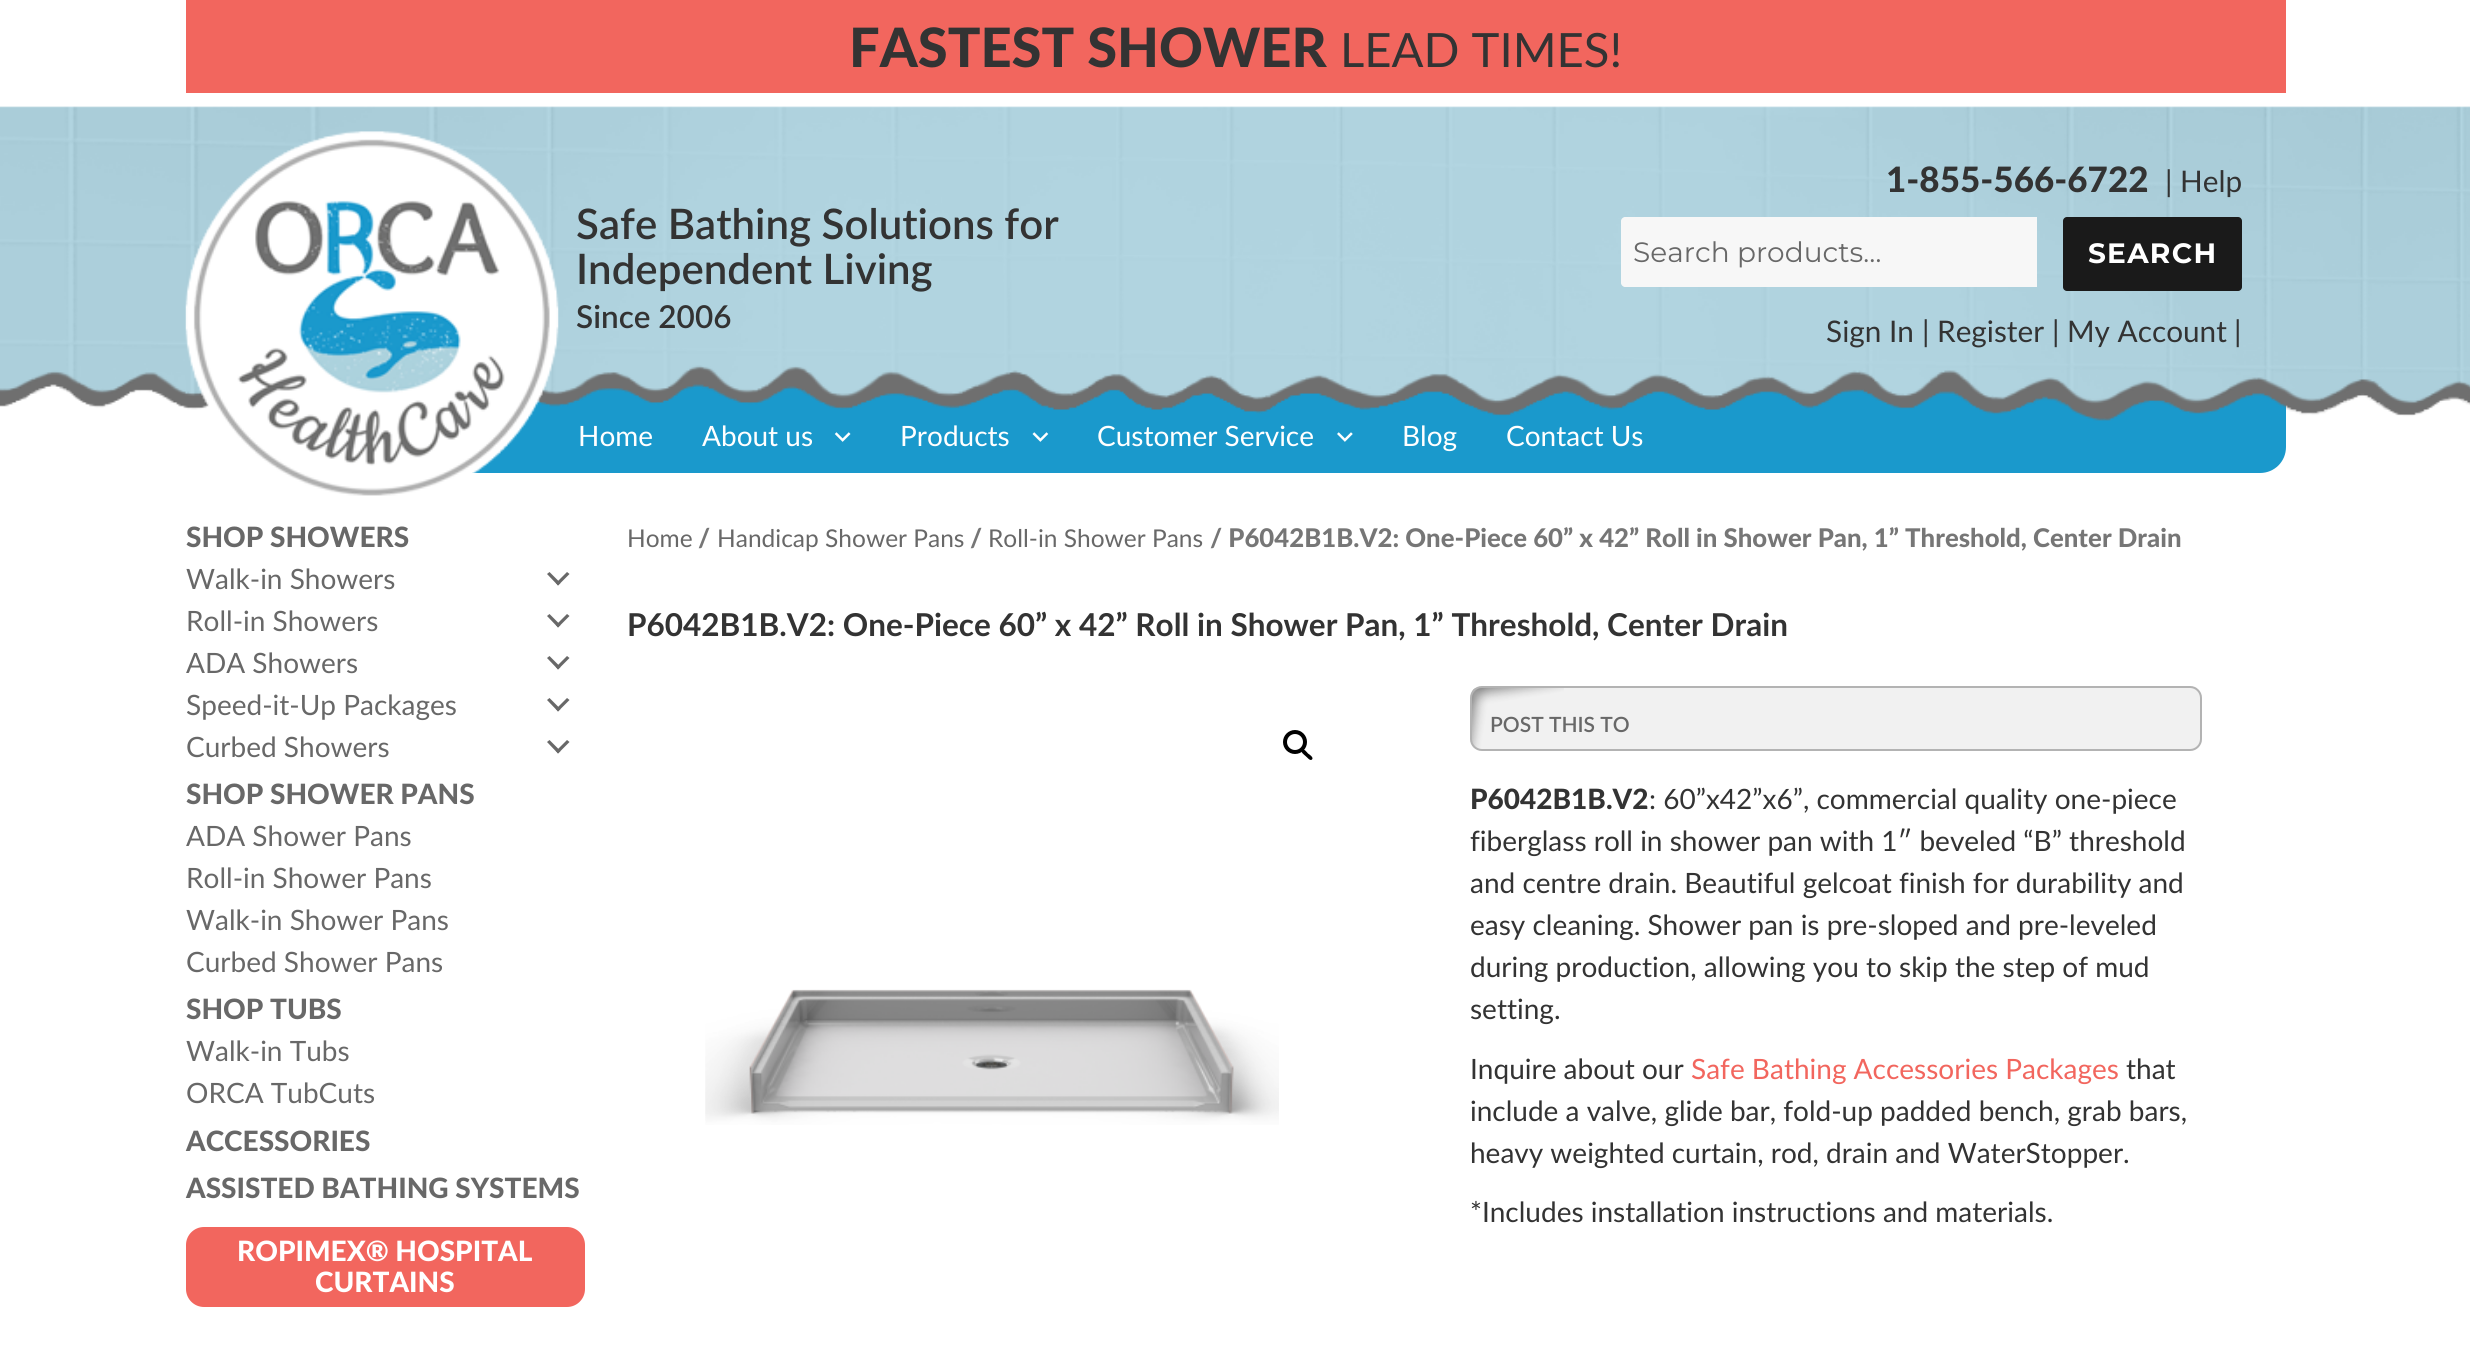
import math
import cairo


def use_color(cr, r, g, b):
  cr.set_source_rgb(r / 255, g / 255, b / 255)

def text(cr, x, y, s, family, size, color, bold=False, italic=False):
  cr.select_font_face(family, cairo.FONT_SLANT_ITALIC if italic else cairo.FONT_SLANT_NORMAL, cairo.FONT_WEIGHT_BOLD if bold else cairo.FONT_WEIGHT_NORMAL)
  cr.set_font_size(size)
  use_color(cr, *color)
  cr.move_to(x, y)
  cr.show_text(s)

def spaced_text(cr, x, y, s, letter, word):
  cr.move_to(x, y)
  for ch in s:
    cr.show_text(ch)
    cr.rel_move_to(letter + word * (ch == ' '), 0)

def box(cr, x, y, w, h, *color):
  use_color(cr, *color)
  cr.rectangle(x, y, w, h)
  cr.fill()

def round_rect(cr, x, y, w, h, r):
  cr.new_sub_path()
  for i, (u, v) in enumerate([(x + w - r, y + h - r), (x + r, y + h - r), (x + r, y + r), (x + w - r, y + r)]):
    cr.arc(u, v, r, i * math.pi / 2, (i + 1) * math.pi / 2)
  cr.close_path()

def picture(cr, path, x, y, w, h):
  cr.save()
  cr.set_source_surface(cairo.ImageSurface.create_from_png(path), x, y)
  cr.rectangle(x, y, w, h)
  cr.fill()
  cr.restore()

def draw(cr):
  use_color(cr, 255, 255, 255)
  cr.paint()
  box(cr, 186, 0, 2100, 93, 242, 102, 94)
  use_color(cr, 26, 153, 204)
  cr.new_path()
  cr.move_to(317, 373)
  cr.line_to(2286, 373)
  cr.line_to(2286, 447)
  cr.curve_to(2286, 461.5, 2274.5, 473, 2260, 473)
  cr.line_to(317, 473)
  cr.close_path()
  cr.fill()
  picture(cr, "img_01.png", 0, 106, 2470, 315)
  picture(cr, "img_02.png", 185, 131, 374, 365)
  use_color(cr, 247, 247, 247)
  cr.new_path()
  cr.move_to(1625, 217)
  cr.line_to(2037, 217)
  cr.line_to(2037, 287)
  cr.line_to(1625, 287)
  cr.curve_to(1623, 287, 1621, 285, 1621, 283)
  cr.line_to(1621, 221)
  cr.curve_to(1621, 219, 1623, 217, 1625, 217)
  cr.close_path()
  cr.fill()
  use_color(cr, 26, 26, 26)
  round_rect(cr, 2063, 217, 179, 74, 4)
  cr.fill()
  picture(cr, "img_03.png", 834, 432, 17, 10)
  picture(cr, "img_04.png", 1032, 432, 17, 10)
  picture(cr, "img_05.png", 1337, 432, 16, 10)
  use_color(cr, 104, 104, 104)
  cr.new_path()
  cr.move_to(567, 572)
  cr.line_to(569.5, 574)
  cr.line_to(558, 585.5)
  cr.line_to(556, 583)
  cr.close_path()
  cr.fill()
  cr.new_path()
  cr.move_to(549.5, 572)
  cr.line_to(560.5, 583)
  cr.line_to(558, 585.5)
  cr.line_to(547, 574)
  cr.close_path()
  cr.move_to(567, 614)
  cr.line_to(569.5, 616)
  cr.line_to(558, 627.5)
  cr.line_to(556, 625)
  cr.close_path()
  cr.fill()
  cr.new_path()
  cr.move_to(549.5, 614)
  cr.line_to(560.5, 625)
  cr.line_to(558, 627.5)
  cr.line_to(547, 616)
  cr.close_path()
  cr.move_to(567, 656)
  cr.line_to(569.5, 658)
  cr.line_to(558, 669.5)
  cr.line_to(556, 667)
  cr.close_path()
  cr.fill()
  cr.new_path()
  cr.move_to(549.5, 656)
  cr.line_to(560.5, 667)
  cr.line_to(558, 669.5)
  cr.line_to(547, 658)
  cr.close_path()
  cr.move_to(567, 698)
  cr.line_to(569.5, 700)
  cr.line_to(558, 711.5)
  cr.line_to(556, 709)
  cr.close_path()
  cr.fill()
  cr.new_path()
  cr.move_to(549.5, 698)
  cr.line_to(560.5, 709)
  cr.line_to(558, 711.5)
  cr.line_to(547, 700)
  cr.close_path()
  cr.move_to(567, 740)
  cr.line_to(569.5, 742)
  cr.line_to(558, 753.5)
  cr.line_to(556, 751)
  cr.close_path()
  cr.fill()
  cr.new_path()
  cr.move_to(549.5, 740)
  cr.line_to(560.5, 751)
  cr.line_to(558, 753.5)
  cr.line_to(547, 742)
  cr.close_path()
  cr.fill()
  use_color(cr, 242, 102, 94)
  round_rect(cr, 186, 1227, 399, 80, 18)
  cr.fill()
  cr.arc(1295, 742, 10, 0, 2 * math.pi)
  use_color(cr, 0, 0, 0)
  cr.set_line_width(4)
  cr.stroke()
  cr.new_path()
  cr.move_to(1302, 750)
  cr.curve_to(1304, 748, 1307, 752.5, 1308, 753.5)
  cr.curve_to(1309.5, 754.5, 1314, 757.5, 1312, 759.5)
  cr.curve_to(1310, 761.5, 1307, 757, 1305.5, 756)
  cr.curve_to(1304.5, 755, 1300, 752, 1302, 750)
  cr.close_path()
  cr.fill()
  picture(cr, "img_06.png", 705, 989, 574, 136)
  use_color(cr, 241, 241, 241)
  round_rect(cr, 1470, 686, 732, 65, 12)
  cr.fill()
  picture(cr, "img_07.png", 1471, 687, 93, 63)
  round_rect(cr, 1471, 687, 730, 63, 11)
  use_color(cr, 179, 179, 179)
  cr.set_line_width(2)
  cr.stroke()
  text(cr, 849, 67, "FASTEST SHOWER", "Lato Black", 54.25, (51, 51, 51))
  text(cr, 1340, 67, "LEAD TIMES!", "Lato", 47.25, (51, 51, 51))
  text(cr, 576, 239, "Safe Bathing Solutions for", "Lato SemiBold", 42, (51, 51, 51))
  text(cr, 576, 284, "Independent Living", "Lato SemiBold", 42, (51, 51, 51))
  text(cr, 576, 328, "Since 2006", "Lato SemiBold", 31.5, (51, 51, 51))
  text(cr, 1886, 192, "1-855-566-6722", "Lato Black", 35, (51, 51, 51))
  text(cr, 2165, 192, "|", "Lato", 29.75, (51, 51, 51))
  text(cr, 2180, 192, "Help", "Lato", 29.75, (51, 51, 51))
  text(cr, 1633, 262, "Search products…", "Montserrat Thin", 28, (104, 104, 104))
  cr.select_font_face("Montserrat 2 Thin")
  use_color(cr, 255, 255, 255)
  spaced_text(cr, 2088, 263, "SEARCH", 1.25, 0)
  text(cr, 1826, 342, "Sign In", "Lato", 29.75, (51, 51, 51))
  text(cr, 1922, 342, "|", "Lato", 29.75, (51, 51, 51))
  text(cr, 1937, 342, "Register", "Lato", 29.75, (51, 51, 51))
  text(cr, 2052, 342, "|", "Lato", 29.75, (51, 51, 51))
  text(cr, 2067, 342, "My Account", "Lato", 29.75, (51, 51, 51))
  text(cr, 2234, 342, "|", "Lato", 29.75, (51, 51, 51))
  text(cr, 578, 446, "Home", "Lato", 28, (255, 255, 255))
  text(cr, 702, 446, "About us", "Lato", 28, (255, 255, 255))
  text(cr, 900, 446, "Products", "Lato", 28, (255, 255, 255))
  text(cr, 1097, 446, "Customer Service", "Lato", 28, (255, 255, 255))
  text(cr, 1402, 446, "Blog", "Lato", 28, (255, 255, 255))
  text(cr, 1506, 446, "Contact Us", "Lato", 28, (255, 255, 255))
  text(cr, 186, 547, "SHOP SHOWERS", "Lato Black", 28, (104, 104, 104))
  text(cr, 186, 589, "Walk-in Showers", "Lato", 28, (104, 104, 104))
  text(cr, 186, 631, "Roll-in Showers", "Lato", 28, (104, 104, 104))
  text(cr, 186, 673, "ADA Showers", "Lato", 28, (104, 104, 104))
  text(cr, 186, 715, "Speed-it-Up Packages", "Lato", 28, (104, 104, 104))
  text(cr, 186, 757, "Curbed Showers", "Lato", 28, (104, 104, 104))
  text(cr, 186, 804, "SHOP SHOWER PANS", "Lato Black", 28, (104, 104, 104))
  text(cr, 186, 846, "ADA Shower Pans", "Lato", 28, (104, 104, 104))
  text(cr, 186, 888, "Roll-in Shower Pans", "Lato", 28, (104, 104, 104))
  text(cr, 186, 930, "Walk-in Shower Pans", "Lato", 28, (104, 104, 104))
  text(cr, 186, 972, "Curbed Shower Pans", "Lato", 28, (104, 104, 104))
  text(cr, 186, 1019, "SHOP TUBS", "Lato Black", 28, (104, 104, 104))
  text(cr, 186, 1061, "Walk-in Tubs", "Lato", 28, (104, 104, 104))
  text(cr, 186, 1103, "ORCA TubCuts", "Lato", 28, (104, 104, 104))
  text(cr, 186, 1151, "ACCESSORIES", "Lato Black", 28, (104, 104, 104))
  text(cr, 186, 1198, "ASSISTED BATHING SYSTEMS", "Lato Black", 28, (104, 104, 104))
  text(cr, 237, 1261, "ROPIMEX® HOSPITAL", "Lato Black", 28, (255, 255, 255))
  text(cr, 315, 1292, "CURTAINS", "Lato Black", 28, (255, 255, 255))
  text(cr, 627, 547, "Home", "Lato", 24.5, (104, 104, 104))
  text(cr, 698, 547, "/", "Lato Black", 25.75, (118, 118, 118))
  text(cr, 717, 547, "Handicap Shower Pans", "Lato", 24.5, (104, 104, 104))
  text(cr, 970, 547, "/", "Lato Black", 25.75, (118, 118, 118))
  text(cr, 988, 547, "Roll-in Shower Pans", "Lato", 24.5, (104, 104, 104))
  text(cr, 1210, 547, "/ P6042B1B.V2: One-Piece 60” x 42” Roll in Shower Pan, 1” Threshold, Center Drain", "Lato Black", 25.75, (118, 118, 118))
  text(cr, 627, 636, "P6042B1B.V2: One-Piece 60” x 42” Roll in Shower Pan, 1” Threshold, Center Drain", "Lato", 31.5, (51, 51, 51), bold=True)
  text(cr, 1490, 732, "POST THIS TO", "Lato SemiBold", 21, (104, 104, 104))
  text(cr, 1470, 809, "P6042B1B.V2", "Lato Black", 28, (51, 51, 51))
  text(cr, 1649, 809, ": 60”x42”x6”, commercial quality one-piece", "Lato", 28, (51, 51, 51))
  text(cr, 1470, 851, "fiberglass roll in shower pan with 1″ beveled “B” threshold", "Lato", 28, (51, 51, 51))
  text(cr, 1470, 893, "and centre drain. Beautiful gelcoat finish for durability and", "Lato", 28, (51, 51, 51))
  text(cr, 1470, 935, "easy cleaning. Shower pan is pre-sloped and pre-leveled", "Lato", 28, (51, 51, 51))
  text(cr, 1470, 977, "during production, allowing you to skip the step of mud", "Lato", 28, (51, 51, 51))
  text(cr, 1470, 1019, "setting.", "Lato", 28, (51, 51, 51))
  text(cr, 1470, 1079, "Inquire about our", "Lato", 28, (51, 51, 51))
  text(cr, 1691, 1079, "Safe Bathing Accessories Packages", "Lato", 28, (242, 102, 94))
  text(cr, 2126, 1079, "that", "Lato", 28, (51, 51, 51))
  text(cr, 1470, 1121, "include a valve, glide bar, fold-up padded bench, grab bars,", "Lato", 28, (51, 51, 51))
  text(cr, 1470, 1163, "heavy weighted curtain, rod, drain and WaterStopper.", "Lato", 28, (51, 51, 51))
  text(cr, 1470, 1222, "*Includes installation instructions and materials.", "Lato", 28, (51, 51, 51))


surface = cairo.ImageSurface(cairo.FORMAT_RGB24, 2470, 1358)
cr = cairo.Context(surface)
options = cairo.FontOptions()
options.set_hint_metrics(cairo.HINT_METRICS_OFF)
options.set_hint_style(cairo.HINT_STYLE_NONE)
cr.set_font_options(options)
cr.set_miter_limit(4)
draw(cr)
surface.write_to_png("out.png")
